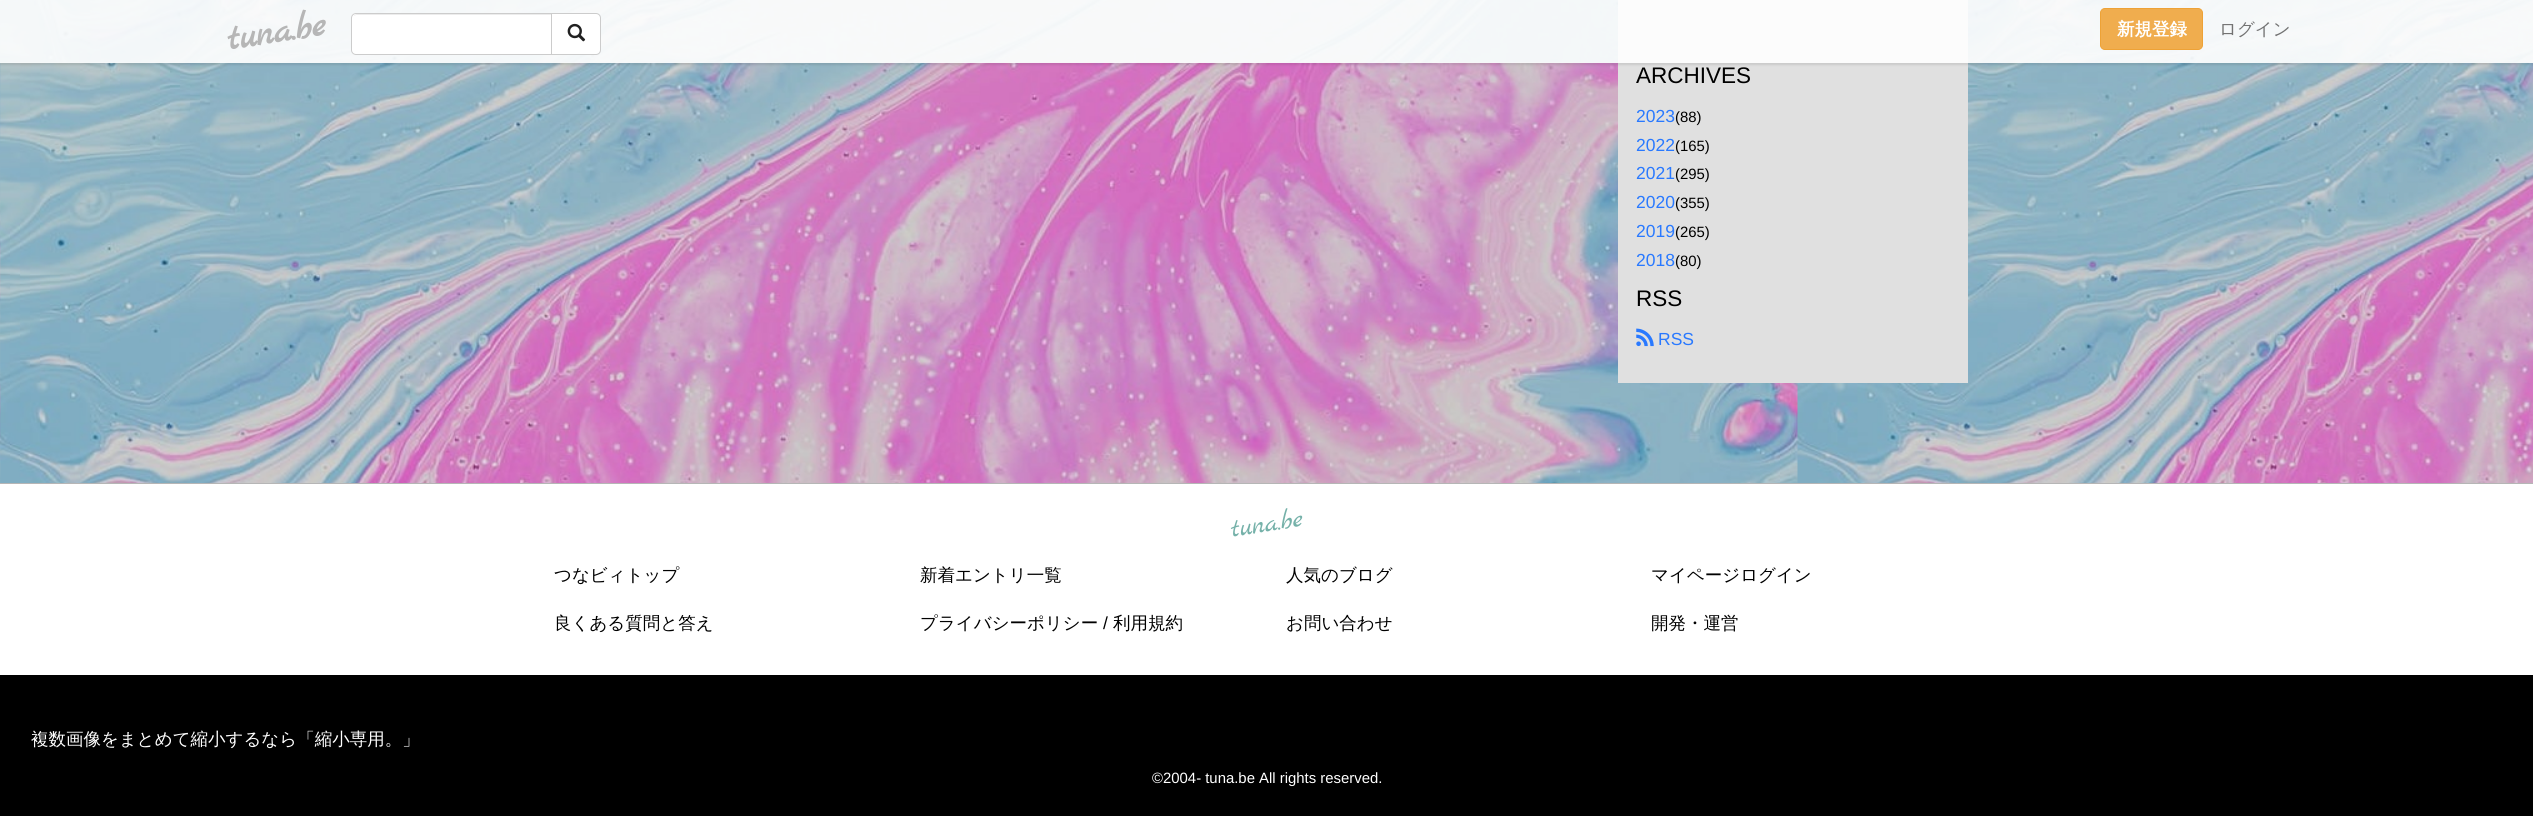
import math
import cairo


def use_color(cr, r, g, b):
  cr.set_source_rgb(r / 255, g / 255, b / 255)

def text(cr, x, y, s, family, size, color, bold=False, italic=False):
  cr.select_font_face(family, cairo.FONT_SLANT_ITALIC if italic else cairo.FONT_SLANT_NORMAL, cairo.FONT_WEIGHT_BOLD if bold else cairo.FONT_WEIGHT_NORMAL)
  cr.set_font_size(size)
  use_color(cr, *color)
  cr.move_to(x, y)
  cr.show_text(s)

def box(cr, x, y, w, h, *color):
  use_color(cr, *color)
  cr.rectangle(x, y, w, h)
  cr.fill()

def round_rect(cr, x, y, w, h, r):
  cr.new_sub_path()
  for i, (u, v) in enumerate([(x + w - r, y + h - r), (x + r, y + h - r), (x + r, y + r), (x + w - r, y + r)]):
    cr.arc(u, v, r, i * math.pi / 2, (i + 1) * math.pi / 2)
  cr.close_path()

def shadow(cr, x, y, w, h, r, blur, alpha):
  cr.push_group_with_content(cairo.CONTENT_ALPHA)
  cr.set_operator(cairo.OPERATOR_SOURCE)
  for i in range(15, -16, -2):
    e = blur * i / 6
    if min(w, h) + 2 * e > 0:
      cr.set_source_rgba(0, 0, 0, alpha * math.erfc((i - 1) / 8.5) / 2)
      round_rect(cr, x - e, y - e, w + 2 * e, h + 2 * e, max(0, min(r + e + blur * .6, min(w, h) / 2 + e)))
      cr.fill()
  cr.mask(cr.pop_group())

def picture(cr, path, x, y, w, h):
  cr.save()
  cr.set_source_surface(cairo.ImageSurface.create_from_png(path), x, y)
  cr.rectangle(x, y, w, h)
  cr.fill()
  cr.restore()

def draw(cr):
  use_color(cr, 255, 255, 255)
  cr.paint()
  picture(cr, "img_01.png", 0, 0, 2533, 483)
  box(cr, 1618, 0, 350, 383, 224, 224, 224)
  cr.save()
  cr.set_fill_rule(cairo.FILL_RULE_EVEN_ODD)
  cr.new_path()
  cr.move_to(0, 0)
  cr.line_to(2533, 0)
  cr.line_to(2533, 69)
  cr.line_to(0, 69)
  cr.close_path()
  cr.move_to(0, 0)
  cr.line_to(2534, 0)
  cr.line_to(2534, 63)
  cr.line_to(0, 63)
  cr.close_path()
  cr.clip()
  use_color(cr, 0, 0, 0)
  shadow(cr, 0, 3, 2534, 62, 0, 1, 0.1)
  cr.restore()
  cr.set_source_rgba(1, 1, 1, 0.9)
  cr.rectangle(0, 0, 2533, 63)
  cr.fill()
  use_color(cr, 255, 255, 255)
  cr.new_path()
  cr.move_to(356, 13)
  cr.line_to(553, 13)
  cr.line_to(553, 55)
  cr.line_to(356, 55)
  cr.curve_to(353, 55, 351, 53, 351, 50)
  cr.line_to(351, 18)
  cr.curve_to(351, 15, 353, 13, 356, 13)
  cr.close_path()
  cr.fill()
  use_color(cr, 236, 236, 236)
  cr.new_path()
  cr.move_to(356, 15)
  cr.line_to(551, 15)
  cr.line_to(551, 14)
  cr.line_to(357, 14)
  cr.curve_to(356, 14, 354, 15, 354, 16)
  cr.close_path()
  cr.fill()
  cr.new_path()
  cr.move_to(356, 13.5)
  cr.line_to(552.5, 13.5)
  cr.line_to(552.5, 54.5)
  cr.line_to(356, 54.5)
  cr.curve_to(353.5, 54.5, 351.5, 52.5, 351.5, 50)
  cr.line_to(351.5, 18)
  cr.curve_to(351.5, 15.5, 353.5, 13.5, 356, 13.5)
  cr.close_path()
  use_color(cr, 204, 204, 204)
  cr.set_line_width(1)
  cr.stroke()
  use_color(cr, 255, 255, 255)
  cr.new_path()
  cr.move_to(551.5, 13.5)
  cr.line_to(596, 13.5)
  cr.curve_to(598.5, 13.5, 600.5, 15.5, 600.5, 18)
  cr.line_to(600.5, 50)
  cr.curve_to(600.5, 52.5, 598.5, 54.5, 596, 54.5)
  cr.line_to(551.5, 54.5)
  cr.close_path()
  cr.fill_preserve()
  use_color(cr, 204, 204, 204)
  cr.stroke()
  picture(cr, "img_02.png", 567, 23, 19, 19)
  use_color(cr, 240, 173, 78)
  round_rect(cr, 2100.5, 8.5, 102, 41, 4.5)
  cr.fill_preserve()
  use_color(cr, 238, 162, 54)
  cr.stroke()
  picture(cr, "img_03.png", 1636, 328, 18, 19)
  box(cr, 0, 483, 2533, 1, 182, 182, 182)
  box(cr, 0, 675, 2533, 141, 0, 0, 0)
  cr.save()
  cr.translate(229, 50)
  cr.rotate(-9 * math.pi / 180)
  text(cr, 0, 0, "tuna.be", "Marck Script", 37.5, (182, 182, 182), bold=True)
  cr.restore()
  text(cr, 2117, 35, "新規登録", "WenQuanYi Zen Hei", 17.5, (255, 255, 255), bold=True)
  text(cr, 2219, 35, "ログイン", "WenQuanYi Zen Hei Medium", 17.5, (114, 114, 114))
  text(cr, 1636, 83, "ARCHIVES", "Liberation Sans", 22.5, (0, 0, 0))
  text(cr, 1636, 122, "2023", "Liberation Sans", 17.5, (41, 121, 255))
  text(cr, 1675, 122, "(88)", "Liberation Sans", 14.9, (0, 0, 0))
  text(cr, 1636, 151, "2022", "Liberation Sans", 17.5, (41, 121, 255))
  text(cr, 1675, 151, "(165)", "Liberation Sans", 14.9, (0, 0, 0))
  text(cr, 1636, 179, "2021", "Liberation Sans", 17.5, (41, 121, 255))
  text(cr, 1675, 179, "(295)", "Liberation Sans", 14.9, (0, 0, 0))
  text(cr, 1636, 208, "2020", "Liberation Sans", 17.5, (41, 121, 255))
  text(cr, 1675, 208, "(355)", "Liberation Sans", 14.9, (0, 0, 0))
  text(cr, 1636, 237, "2019", "Liberation Sans", 17.5, (41, 121, 255))
  text(cr, 1675, 237, "(265)", "Liberation Sans", 14.9, (0, 0, 0))
  text(cr, 1636, 266, "2018", "Liberation Sans", 17.5, (41, 121, 255))
  text(cr, 1675, 266, "(80)", "Liberation Sans", 14.9, (0, 0, 0))
  text(cr, 1636, 306, "RSS", "Liberation Sans", 22.5, (0, 0, 0))
  text(cr, 1658, 345, "RSS", "Liberation Sans", 17.5, (41, 121, 255))
  cr.save()
  cr.translate(1232, 537)
  cr.rotate(-9 * math.pi / 180)
  text(cr, 0, 0, "tuna.be", "Marck Script", 27.5, (117, 177, 169))
  cr.restore()
  text(cr, 554, 581, "つなビィトップ", "WenQuanYi Zen Hei Medium", 17.5, (0, 0, 0))
  text(cr, 920, 581, "新着エントリ一覧", "WenQuanYi Zen Hei Medium", 17.5, (0, 0, 0))
  text(cr, 1286, 581, "人気のブログ", "WenQuanYi Zen Hei Medium", 17.5, (0, 0, 0))
  text(cr, 1651, 581, "マイページログイン", "WenQuanYi Zen Hei Medium", 17.5, (0, 0, 0))
  text(cr, 554, 629, "良くある質問と答え", "WenQuanYi Zen Hei Medium", 17.5, (0, 0, 0))
  text(cr, 920, 629, "プライバシーポリシー", "WenQuanYi Zen Hei Medium", 17.5, (0, 0, 0))
  text(cr, 1103, 629, "/", "Liberation Sans", 17.5, (0, 0, 0))
  text(cr, 1113, 629, "利用規約", "WenQuanYi Zen Hei Medium", 17.5, (0, 0, 0))
  text(cr, 1286, 629, "お問い合わせ", "WenQuanYi Zen Hei Medium", 17.5, (0, 0, 0))
  text(cr, 1651, 629, "開発・運営", "WenQuanYi Zen Hei Medium", 17.5, (0, 0, 0))
  text(cr, 31, 745, "複数画像をまとめて縮小するなら「縮小専用。」", "WenQuanYi Zen Hei Medium", 17.5, (255, 255, 255))
  text(cr, 1152, 783, "©2004- tuna.be All rights reserved.", "Liberation Sans", 14.9, (255, 255, 255))


surface = cairo.ImageSurface(cairo.FORMAT_RGB24, 2533, 835)
cr = cairo.Context(surface)
options = cairo.FontOptions()
options.set_hint_metrics(cairo.HINT_METRICS_OFF)
options.set_hint_style(cairo.HINT_STYLE_NONE)
cr.set_font_options(options)
cr.set_miter_limit(4)
draw(cr)
surface.write_to_png("out.png")
